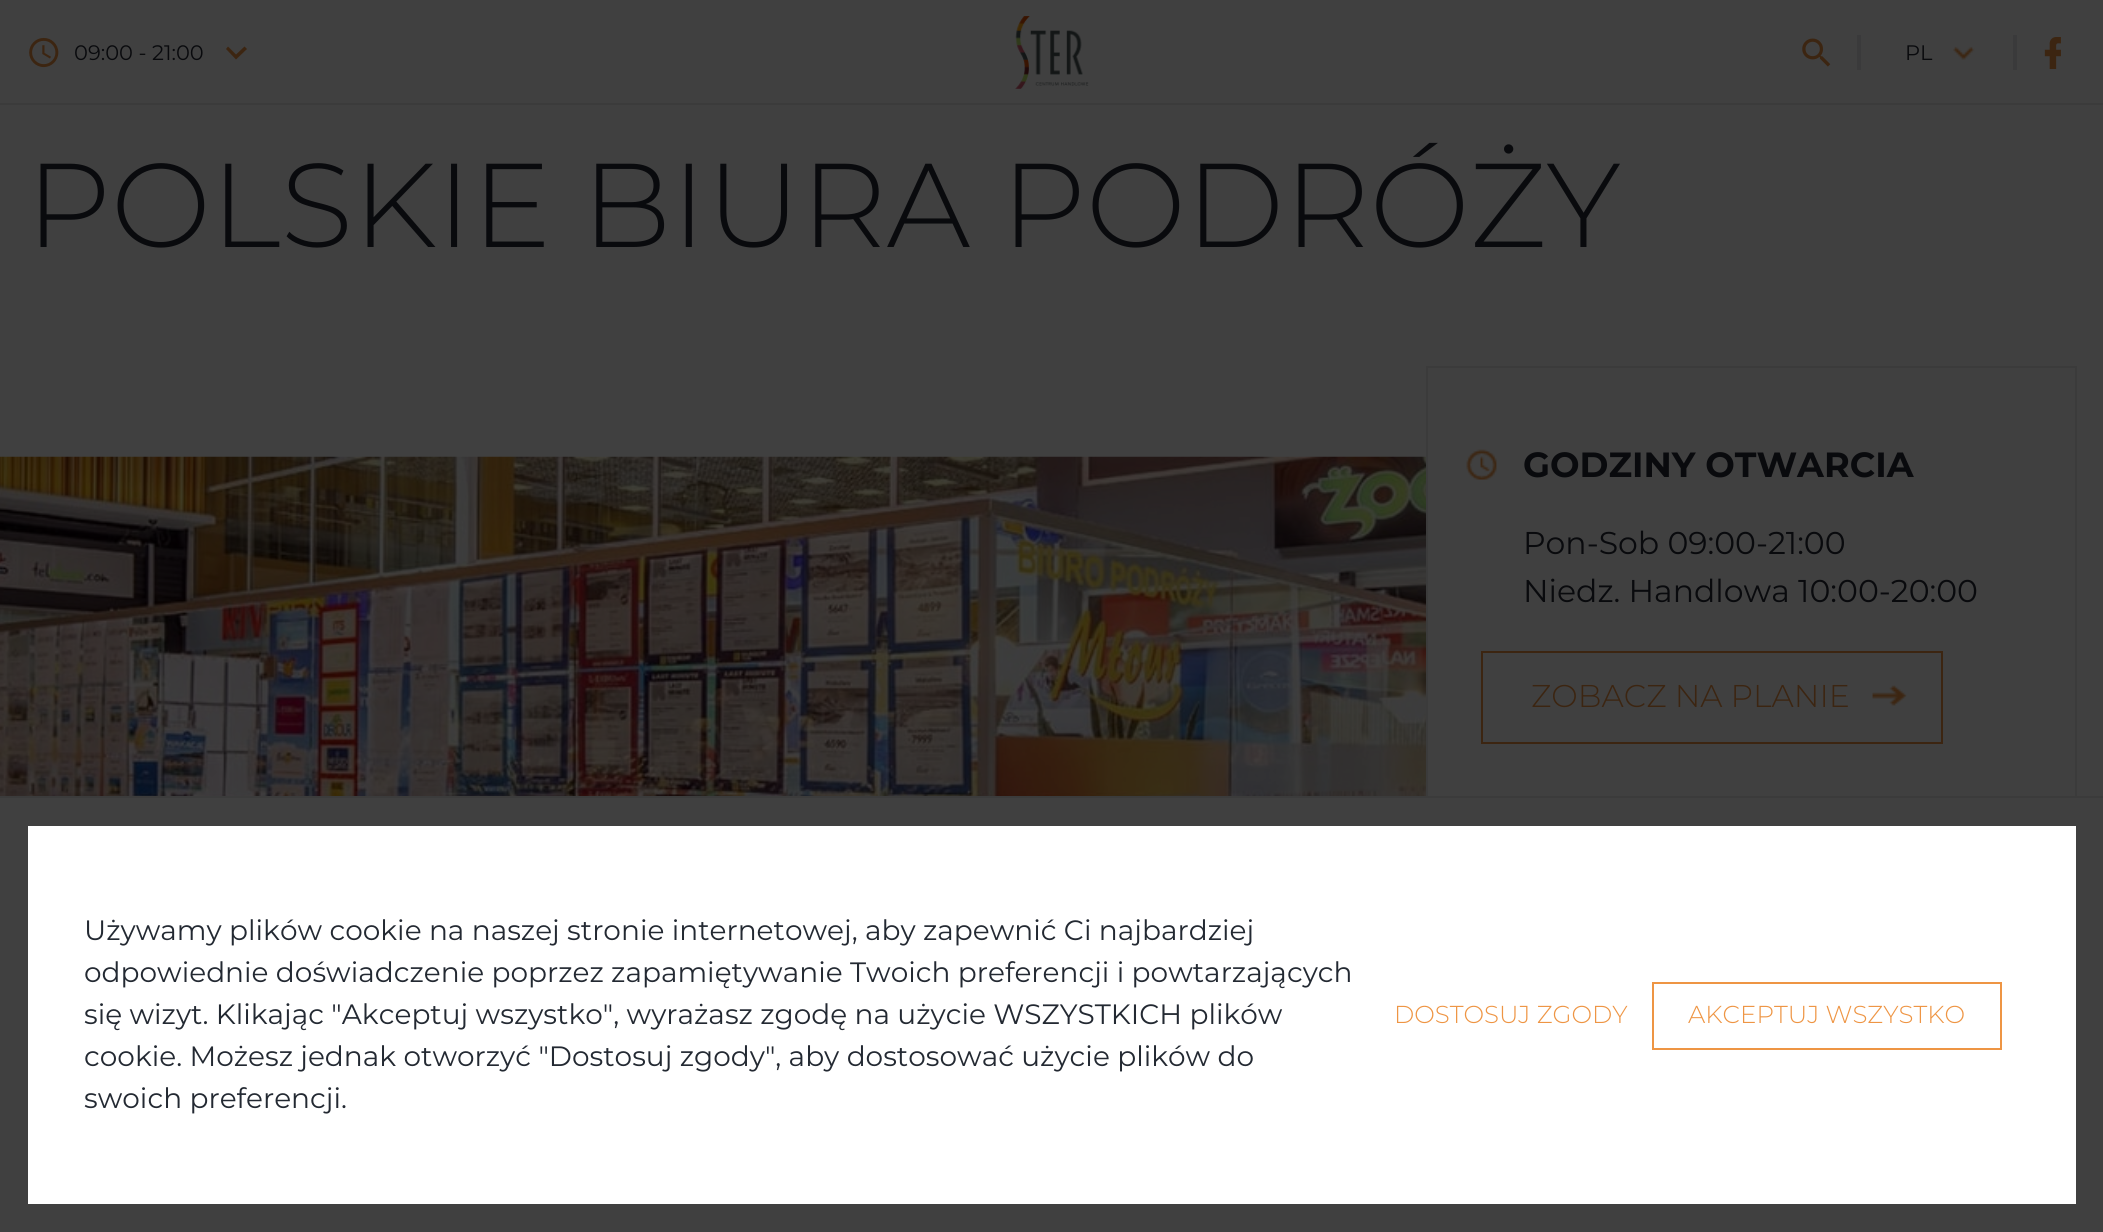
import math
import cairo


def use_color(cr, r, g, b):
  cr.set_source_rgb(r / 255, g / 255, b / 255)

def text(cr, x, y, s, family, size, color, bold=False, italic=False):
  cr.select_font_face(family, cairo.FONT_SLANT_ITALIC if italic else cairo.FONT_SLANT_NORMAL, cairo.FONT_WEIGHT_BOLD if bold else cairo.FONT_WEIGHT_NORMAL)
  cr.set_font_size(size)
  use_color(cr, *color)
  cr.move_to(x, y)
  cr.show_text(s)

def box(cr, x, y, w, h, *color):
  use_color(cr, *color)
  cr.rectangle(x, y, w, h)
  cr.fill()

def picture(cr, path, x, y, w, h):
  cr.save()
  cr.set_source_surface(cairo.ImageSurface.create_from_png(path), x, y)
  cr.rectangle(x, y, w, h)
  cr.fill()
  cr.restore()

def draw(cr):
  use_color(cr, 64, 64, 64)
  cr.paint()
  box(cr, 0, 103, 2103, 2, 59, 59, 59)
  picture(cr, "img_01.png", 29, 37, 30, 31)
  use_color(cr, 60, 37, 17)
  cr.new_path()
  cr.move_to(228, 46.5)
  cr.line_to(236, 54.5)
  cr.line_to(244.5, 46.5)
  cr.line_to(247, 49)
  cr.line_to(236, 59.5)
  cr.line_to(226, 49)
  cr.close_path()
  cr.fill()
  picture(cr, "img_02.png", 1015, 16, 74, 73)
  picture(cr, "img_03.png", 1802, 38, 29, 29)
  box(cr, 1857, 35, 4, 35, 58, 58, 59)
  picture(cr, "img_04.png", 1953, 46, 22, 14)
  box(cr, 2013, 35, 4, 35, 58, 58, 59)
  picture(cr, "img_05.png", 2044, 37, 17, 32)
  picture(cr, "img_06.png", 0, 456, 1426, 340)
  cr.rectangle(1427, 367, 649, 455)
  use_color(cr, 59, 59, 59)
  cr.stroke()
  picture(cr, "img_07.png", 1466, 449, 31, 31)
  cr.rectangle(1482, 652, 460, 91)
  use_color(cr, 60, 37, 17)
  cr.stroke()
  picture(cr, "img_08.png", 1872, 685, 35, 21)
  box(cr, 1426, 798, 651, 25, 64, 64, 64)
  box(cr, 0, 796, 2103, 2, 59, 59, 59)
  box(cr, 28, 826, 2048, 378, 255, 255, 255)
  cr.rectangle(1653, 983, 348, 66)
  use_color(cr, 238, 149, 68)
  cr.stroke()
  text(cr, 74, 60, "09:00 - 21:00", "Montserrat", 21, (9, 10, 13))
  text(cr, 1905, 60, "PL", "Montserrat", 21, (9, 10, 13))
  text(cr, 26, 247, "POLSKIE BIURA PODRÓŻY", "Montserrat Light", 119, (9, 10, 13))
  text(cr, 1523, 477, "GODZINY OTWARCIA", "Montserrat", 35, (9, 10, 13), bold=True)
  text(cr, 1523, 554, "Pon-Sob 09:00-21:00", "Montserrat", 31.5, (9, 10, 13))
  text(cr, 1523, 602, "Niedz. Handlowa 10:00-20:00", "Montserrat", 31.5, (9, 10, 13))
  text(cr, 1531, 707, "ZOBACZ NA PLANIE", "Montserrat Light", 31.5, (60, 37, 17))
  text(cr, 84, 940, "Używamy plików cookie na naszej stronie internetowej, aby zapewnić Ci najbardziej", "Montserrat", 28, (35, 41, 50))
  text(cr, 84, 982, "odpowiednie doświadczenie poprzez zapamiętywanie Twoich preferencji i powtarzających", "Montserrat", 28, (35, 41, 50))
  text(cr, 84, 1024, "się wizyt. Klikając \"Akceptuj wszystko\", wyrażasz zgodę na użycie WSZYSTKICH plików", "Montserrat", 28, (35, 41, 50))
  text(cr, 84, 1066, "cookie. Możesz jednak otworzyć \"Dostosuj zgody\", aby dostosować użycie plików do", "Montserrat", 28, (35, 41, 50))
  text(cr, 84, 1108, "swoich preferencji.", "Montserrat", 28, (35, 41, 50))
  text(cr, 1394, 1023, "DOSTOSUJ ZGODY", "Montserrat Light", 24.5, (238, 149, 68))
  text(cr, 1688, 1023, "AKCEPTUJ WSZYSTKO", "Montserrat Light", 24.5, (238, 149, 68))


surface = cairo.ImageSurface(cairo.FORMAT_RGB24, 2103, 1232)
cr = cairo.Context(surface)
options = cairo.FontOptions()
options.set_hint_metrics(cairo.HINT_METRICS_OFF)
options.set_hint_style(cairo.HINT_STYLE_NONE)
cr.set_font_options(options)
cr.set_miter_limit(4)
draw(cr)
surface.write_to_png("out.png")
